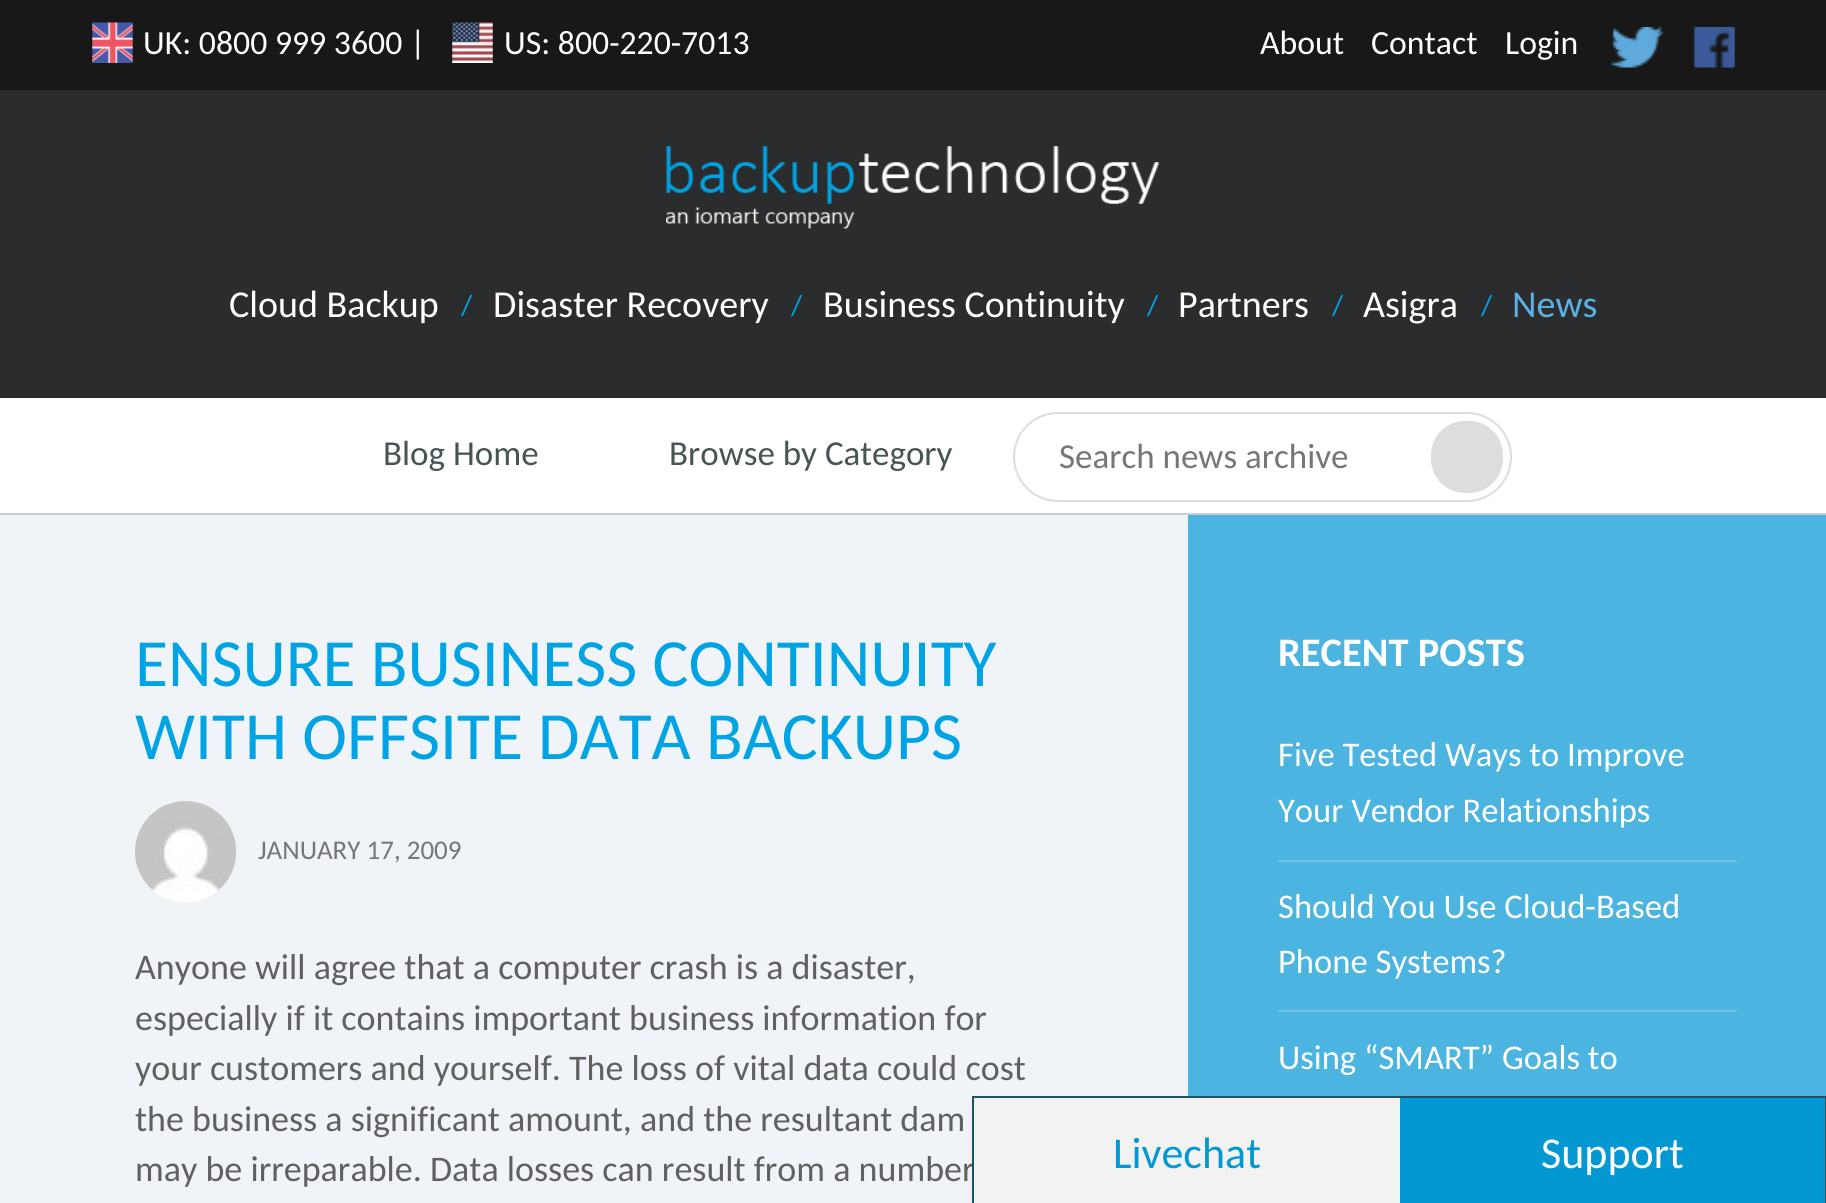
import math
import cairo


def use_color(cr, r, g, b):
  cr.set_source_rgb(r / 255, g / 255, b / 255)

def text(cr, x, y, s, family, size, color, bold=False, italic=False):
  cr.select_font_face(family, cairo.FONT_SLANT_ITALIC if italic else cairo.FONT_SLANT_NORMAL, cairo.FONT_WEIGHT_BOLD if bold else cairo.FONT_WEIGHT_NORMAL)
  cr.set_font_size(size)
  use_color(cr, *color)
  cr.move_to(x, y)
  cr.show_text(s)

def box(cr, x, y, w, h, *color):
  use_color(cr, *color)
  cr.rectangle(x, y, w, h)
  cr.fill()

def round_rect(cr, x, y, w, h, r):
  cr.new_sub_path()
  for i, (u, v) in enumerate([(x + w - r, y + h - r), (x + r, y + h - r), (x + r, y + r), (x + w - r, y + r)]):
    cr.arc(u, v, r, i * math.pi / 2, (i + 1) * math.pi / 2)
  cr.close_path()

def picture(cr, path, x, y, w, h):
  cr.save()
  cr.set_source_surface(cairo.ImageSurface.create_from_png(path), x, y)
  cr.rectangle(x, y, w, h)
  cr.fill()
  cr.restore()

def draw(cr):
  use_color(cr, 24, 24, 24)
  cr.paint()
  picture(cr, "img_01.png", 92, 22, 41, 41)
  picture(cr, "img_02.png", 452, 22, 41, 41)
  picture(cr, "img_03.png", 1611, 27, 52, 41)
  picture(cr, "img_04.png", 1693, 27, 42, 41)
  box(cr, 0, 90, 1826, 308, 43, 44, 45)
  picture(cr, "img_05.png", 666, 146, 494, 83)
  box(cr, 0, 398, 1826, 115, 255, 255, 255)
  box(cr, 0, 513, 1826, 2, 197, 204, 218)
  round_rect(cr, 1014, 413, 497, 88, 44)
  use_color(cr, 221, 221, 221)
  cr.stroke()
  round_rect(cr, 1431, 421, 72, 72, 34)
  cr.fill()
  box(cr, 0, 515, 1188, 688, 240, 244, 248)
  picture(cr, "img_06.png", 135, 801, 101, 101)
  box(cr, 1188, 515, 638, 581, 76, 180, 224)
  box(cr, 1278, 860, 459, 2, 112, 195, 230)
  box(cr, 1278, 1010, 459, 2, 112, 195, 230)
  box(cr, 972, 1096, 854, 2, 31, 82, 102)
  box(cr, 1825, 1096, 1, 107, 31, 82, 102)
  box(cr, 1400, 1098, 425, 105, 4, 152, 211)
  box(cr, 974, 1098, 426, 105, 242, 242, 242)
  text(cr, 143, 54, "UK: 0800 999 3600 |", "Carlito", 33.75, (255, 255, 255))
  text(cr, 504, 54, "US: 800-220-7013", "Carlito", 33.75, (255, 255, 255))
  text(cr, 1260, 54, "About", "Carlito", 33.75, (255, 255, 255))
  text(cr, 1371, 54, "Contact", "Carlito", 33.75, (255, 255, 255))
  text(cr, 1505, 54, "Login", "Carlito", 33.75, (255, 255, 255))
  text(cr, 229, 317, "Cloud Backup", "Carlito", 38, (255, 255, 255))
  text(cr, 461, 315, "/", "Carlito", 29, (0, 164, 228))
  text(cr, 493, 317, "Disaster Recovery", "Carlito", 38, (255, 255, 255))
  text(cr, 791, 315, "/", "Carlito", 29, (0, 164, 228))
  text(cr, 823, 317, "Business Continuity", "Carlito", 38, (255, 255, 255))
  text(cr, 1147, 315, "/", "Carlito", 29, (0, 164, 228))
  text(cr, 1178, 317, "Partners", "Carlito", 38, (255, 255, 255))
  text(cr, 1332, 315, "/", "Carlito", 29, (0, 164, 228))
  text(cr, 1363, 317, "Asigra", "Carlito", 38, (255, 255, 255))
  text(cr, 1481, 315, "/", "Carlito", 29, (0, 164, 228))
  text(cr, 1512, 317, "News", "Carlito", 38, (91, 177, 226))
  text(cr, 383, 465, "Blog Home", "Carlito", 35, (71, 84, 85))
  text(cr, 669, 465, "Browse by Category", "Carlito", 35, (71, 84, 85))
  text(cr, 1059, 468, "Search news archive", "Carlito", 35, (118, 118, 118))
  text(cr, 135, 686, "ENSURE BUSINESS CONTINUITY", "Carlito", 67.5, (0, 164, 228))
  text(cr, 135, 759, "WITH OFFSITE DATA BACKUPS", "Carlito", 67.5, (0, 164, 228))
  text(cr, 258, 859, "JANUARY 17, 2009", "Carlito", 27, (118, 118, 118))
  text(cr, 135, 979, "Anyone will agree that a computer crash is a disaster,", "Carlito", 36, (96, 96, 96))
  text(cr, 135, 1030, "especially if it contains important business information for", "Carlito", 36, (96, 96, 96))
  text(cr, 135, 1080, "your customers and yourself. The loss of vital data could cost", "Carlito", 36, (96, 96, 96))
  text(cr, 135, 1131, "the business a significant amount, and the resultant dam", "Carlito", 36, (96, 96, 96))
  text(cr, 135, 1181, "may be irreparable. Data losses can result from a number", "Carlito", 36, (96, 96, 96))
  text(cr, 1278, 666, "RECENT POSTS", "Carlito", 40.5, (255, 255, 255), bold=True)
  text(cr, 1278, 766, "Five Tested Ways to Improve", "Carlito", 34.6, (255, 255, 255))
  text(cr, 1278, 822, "Your Vendor Relationships", "Carlito", 34.6, (255, 255, 255))
  text(cr, 1278, 918, "Should You Use Cloud-Based", "Carlito", 34.6, (255, 255, 255))
  text(cr, 1278, 973, "Phone Systems?", "Carlito", 34.6, (255, 255, 255))
  text(cr, 1278, 1069, "Using “SMART” Goals to", "Carlito", 34.6, (255, 255, 255))
  box(cr, 972, 1096, 2, 107, 31, 82, 102)
  text(cr, 1113, 1168, "Livechat", "Carlito", 44, (4, 152, 211))
  text(cr, 1541, 1168, "Support", "Carlito", 44, (255, 255, 255))


surface = cairo.ImageSurface(cairo.FORMAT_RGB24, 1826, 1203)
cr = cairo.Context(surface)
options = cairo.FontOptions()
options.set_hint_metrics(cairo.HINT_METRICS_OFF)
options.set_hint_style(cairo.HINT_STYLE_NONE)
cr.set_font_options(options)
cr.set_miter_limit(4)
draw(cr)
surface.write_to_png("out.png")
